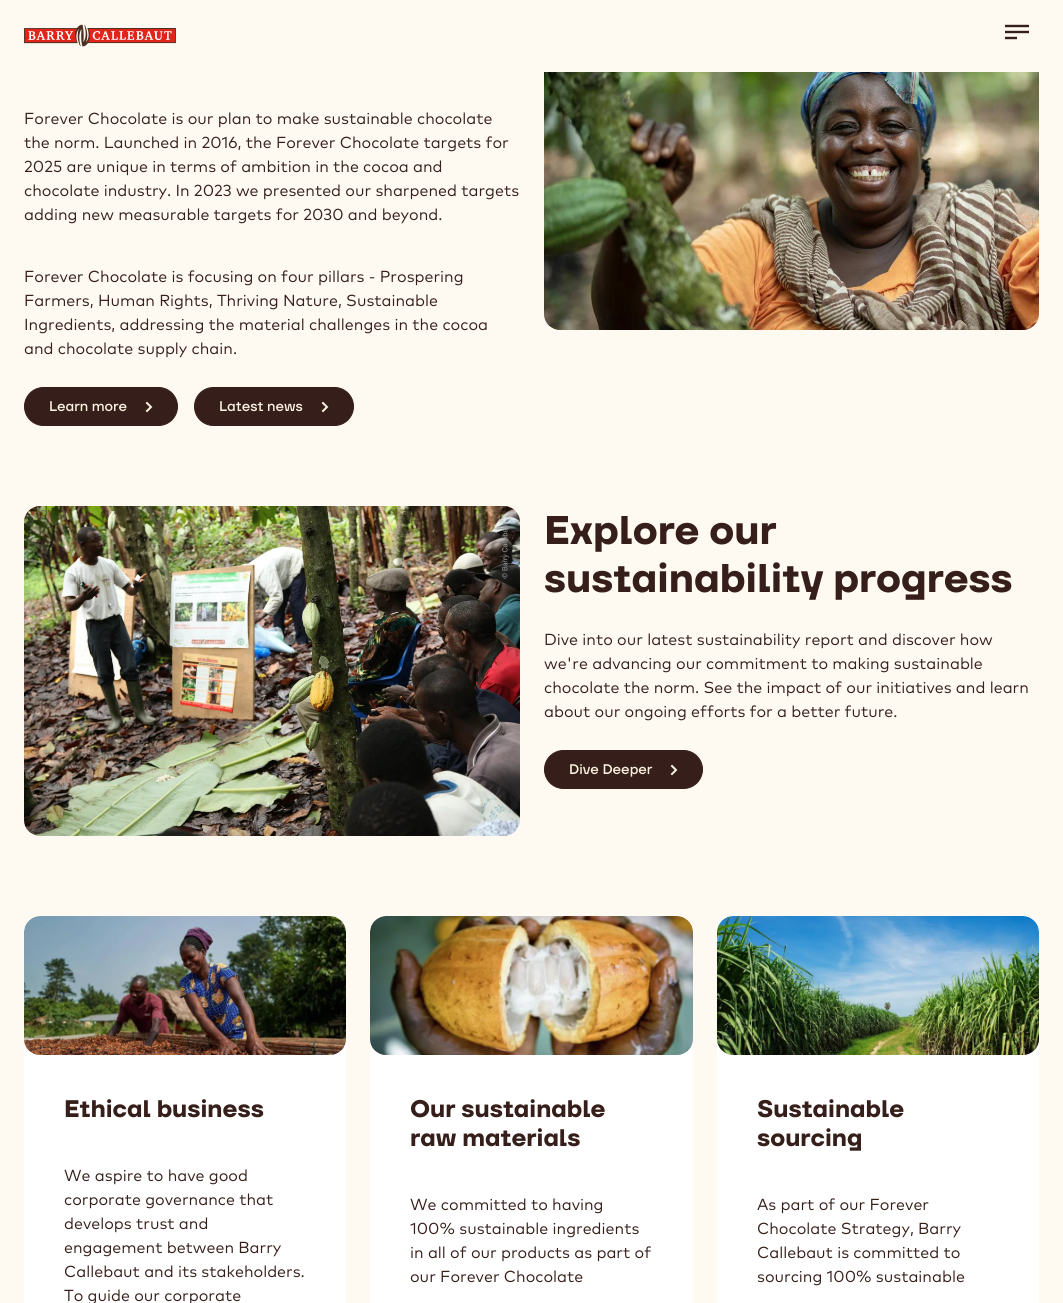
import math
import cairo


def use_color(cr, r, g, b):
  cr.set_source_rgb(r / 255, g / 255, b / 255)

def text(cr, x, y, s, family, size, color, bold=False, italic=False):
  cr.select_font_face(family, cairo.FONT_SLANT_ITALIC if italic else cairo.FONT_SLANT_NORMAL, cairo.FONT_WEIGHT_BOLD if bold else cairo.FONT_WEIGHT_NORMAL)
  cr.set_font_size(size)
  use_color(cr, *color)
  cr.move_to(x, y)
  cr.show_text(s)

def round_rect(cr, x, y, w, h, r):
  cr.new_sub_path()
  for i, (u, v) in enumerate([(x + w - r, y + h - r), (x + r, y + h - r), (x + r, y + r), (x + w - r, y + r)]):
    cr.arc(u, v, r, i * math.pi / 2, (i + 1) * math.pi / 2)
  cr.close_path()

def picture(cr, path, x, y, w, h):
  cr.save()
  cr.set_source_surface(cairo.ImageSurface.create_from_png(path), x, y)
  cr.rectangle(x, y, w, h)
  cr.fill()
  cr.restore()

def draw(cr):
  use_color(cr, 254, 250, 242)
  cr.paint()
  picture(cr, "img_01.png", 24, 24, 152, 23)
  picture(cr, "img_02.png", 1005, 24, 24, 16)
  use_color(cr, 54, 31, 26)
  round_rect(cr, 24.5, 387.5, 153, 38, 19)
  cr.fill_preserve()
  cr.set_line_width(1)
  cr.stroke()
  picture(cr, "img_03.png", 145, 401, 8, 12)
  round_rect(cr, 194.5, 387.5, 159, 38, 19)
  cr.fill_preserve()
  cr.stroke()
  picture(cr, "img_03.png", 321, 401, 8, 12)
  picture(cr, "img_04.png", 544, 72, 495, 258)
  picture(cr, "img_05.png", 24, 506, 496, 330)
  round_rect(cr, 544.5, 750.5, 158, 38, 19)
  cr.fill_preserve()
  cr.stroke()
  picture(cr, "img_03.png", 670, 764, 8, 12)
  use_color(cr, 255, 255, 255)
  round_rect(cr, 24, 916, 322, 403, 16)
  cr.fill()
  picture(cr, "img_06.png", 24, 916, 322, 139)
  round_rect(cr, 370, 916, 323, 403, 16)
  cr.fill()
  picture(cr, "img_07.png", 370, 916, 323, 139)
  round_rect(cr, 717, 916, 322, 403, 16)
  cr.fill()
  picture(cr, "img_08.png", 717, 916, 322, 139)
  text(cr, 24, 124, "Forever Chocolate is our plan to make sustainable chocolate", "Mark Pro", 16, (54, 31, 26))
  text(cr, 24, 148, "the norm. Launched in 2016, the Forever Chocolate targets for", "Mark Pro", 16, (54, 31, 26))
  text(cr, 24, 172, "2025 are unique in terms of ambition in the cocoa and", "Mark Pro", 16, (54, 31, 26))
  text(cr, 24, 196, "chocolate industry. In 2023 we presented our sharpened targets", "Mark Pro", 16, (54, 31, 26))
  text(cr, 24, 220, "adding new measurable targets for 2030 and beyond.", "Mark Pro", 16, (54, 31, 26))
  text(cr, 24, 282, "Forever Chocolate is focusing on four pillars - Prospering", "Mark Pro", 16, (54, 31, 26))
  text(cr, 24, 306, "Farmers, Human Rights, Thriving Nature, Sustainable", "Mark Pro", 16, (54, 31, 26))
  text(cr, 24, 330, "Ingredients, addressing the material challenges in the cocoa", "Mark Pro", 16, (54, 31, 26))
  text(cr, 24, 354, "and chocolate supply chain.", "Mark Pro", 16, (54, 31, 26))
  text(cr, 49, 411, "Learn more", "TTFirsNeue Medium", 14, (252, 242, 225))
  text(cr, 219, 411, "Latest news", "TTFirsNeue Medium", 14, (252, 242, 225))
  text(cr, 544, 544, "Explore our", "TTFirsNeue", 40, (54, 31, 26), bold=True)
  text(cr, 544, 592, "sustainability progress", "TTFirsNeue", 40, (54, 31, 26), bold=True)
  text(cr, 544, 645, "Dive into our latest sustainability report and discover how", "Mark Pro", 16, (54, 31, 26))
  text(cr, 544, 669, "we're advancing our commitment to making sustainable", "Mark Pro", 16, (54, 31, 26))
  text(cr, 544, 693, "chocolate the norm. See the impact of our initiatives and learn", "Mark Pro", 16, (54, 31, 26))
  text(cr, 544, 717, "about our ongoing efforts for a better future.", "Mark Pro", 16, (54, 31, 26))
  text(cr, 569, 774, "Dive Deeper", "TTFirsNeue Medium", 14, (252, 242, 225))
  text(cr, 64, 1117, "Ethical business", "TTFirsNeue", 24, (54, 31, 26), bold=True)
  text(cr, 64, 1181, "We aspire to have good", "Mark Pro", 16, (54, 31, 26))
  text(cr, 64, 1205, "corporate governance that", "Mark Pro", 16, (54, 31, 26))
  text(cr, 64, 1229, "develops trust and", "Mark Pro", 16, (54, 31, 26))
  text(cr, 64, 1253, "engagement between Barry", "Mark Pro", 16, (54, 31, 26))
  text(cr, 64, 1277, "Callebaut and its stakeholders.", "Mark Pro", 16, (54, 31, 26))
  text(cr, 64, 1301, "To guide our corporate", "Mark Pro", 16, (54, 31, 26))
  text(cr, 410, 1117, "Our sustainable", "TTFirsNeue", 24, (54, 31, 26), bold=True)
  text(cr, 410, 1146, "raw materials", "TTFirsNeue", 24, (54, 31, 26), bold=True)
  text(cr, 410, 1210, "We committed to having", "Mark Pro", 16, (54, 31, 26))
  text(cr, 410, 1234, "100% sustainable ingredients", "Mark Pro", 16, (54, 31, 26))
  text(cr, 410, 1258, "in all of our products as part of", "Mark Pro", 16, (54, 31, 26))
  text(cr, 410, 1282, "our Forever Chocolate", "Mark Pro", 16, (54, 31, 26))
  text(cr, 757, 1117, "Sustainable", "TTFirsNeue", 24, (54, 31, 26), bold=True)
  text(cr, 757, 1146, "sourcing", "TTFirsNeue", 24, (54, 31, 26), bold=True)
  text(cr, 757, 1210, "As part of our Forever", "Mark Pro", 16, (54, 31, 26))
  text(cr, 757, 1234, "Chocolate Strategy, Barry", "Mark Pro", 16, (54, 31, 26))
  text(cr, 757, 1258, "Callebaut is committed to", "Mark Pro", 16, (54, 31, 26))
  text(cr, 757, 1282, "sourcing 100% sustainable", "Mark Pro", 16, (54, 31, 26))


surface = cairo.ImageSurface(cairo.FORMAT_RGB24, 1063, 1303)
cr = cairo.Context(surface)
options = cairo.FontOptions()
options.set_hint_metrics(cairo.HINT_METRICS_OFF)
options.set_hint_style(cairo.HINT_STYLE_NONE)
cr.set_font_options(options)
cr.set_miter_limit(4)
draw(cr)
surface.write_to_png("out.png")
